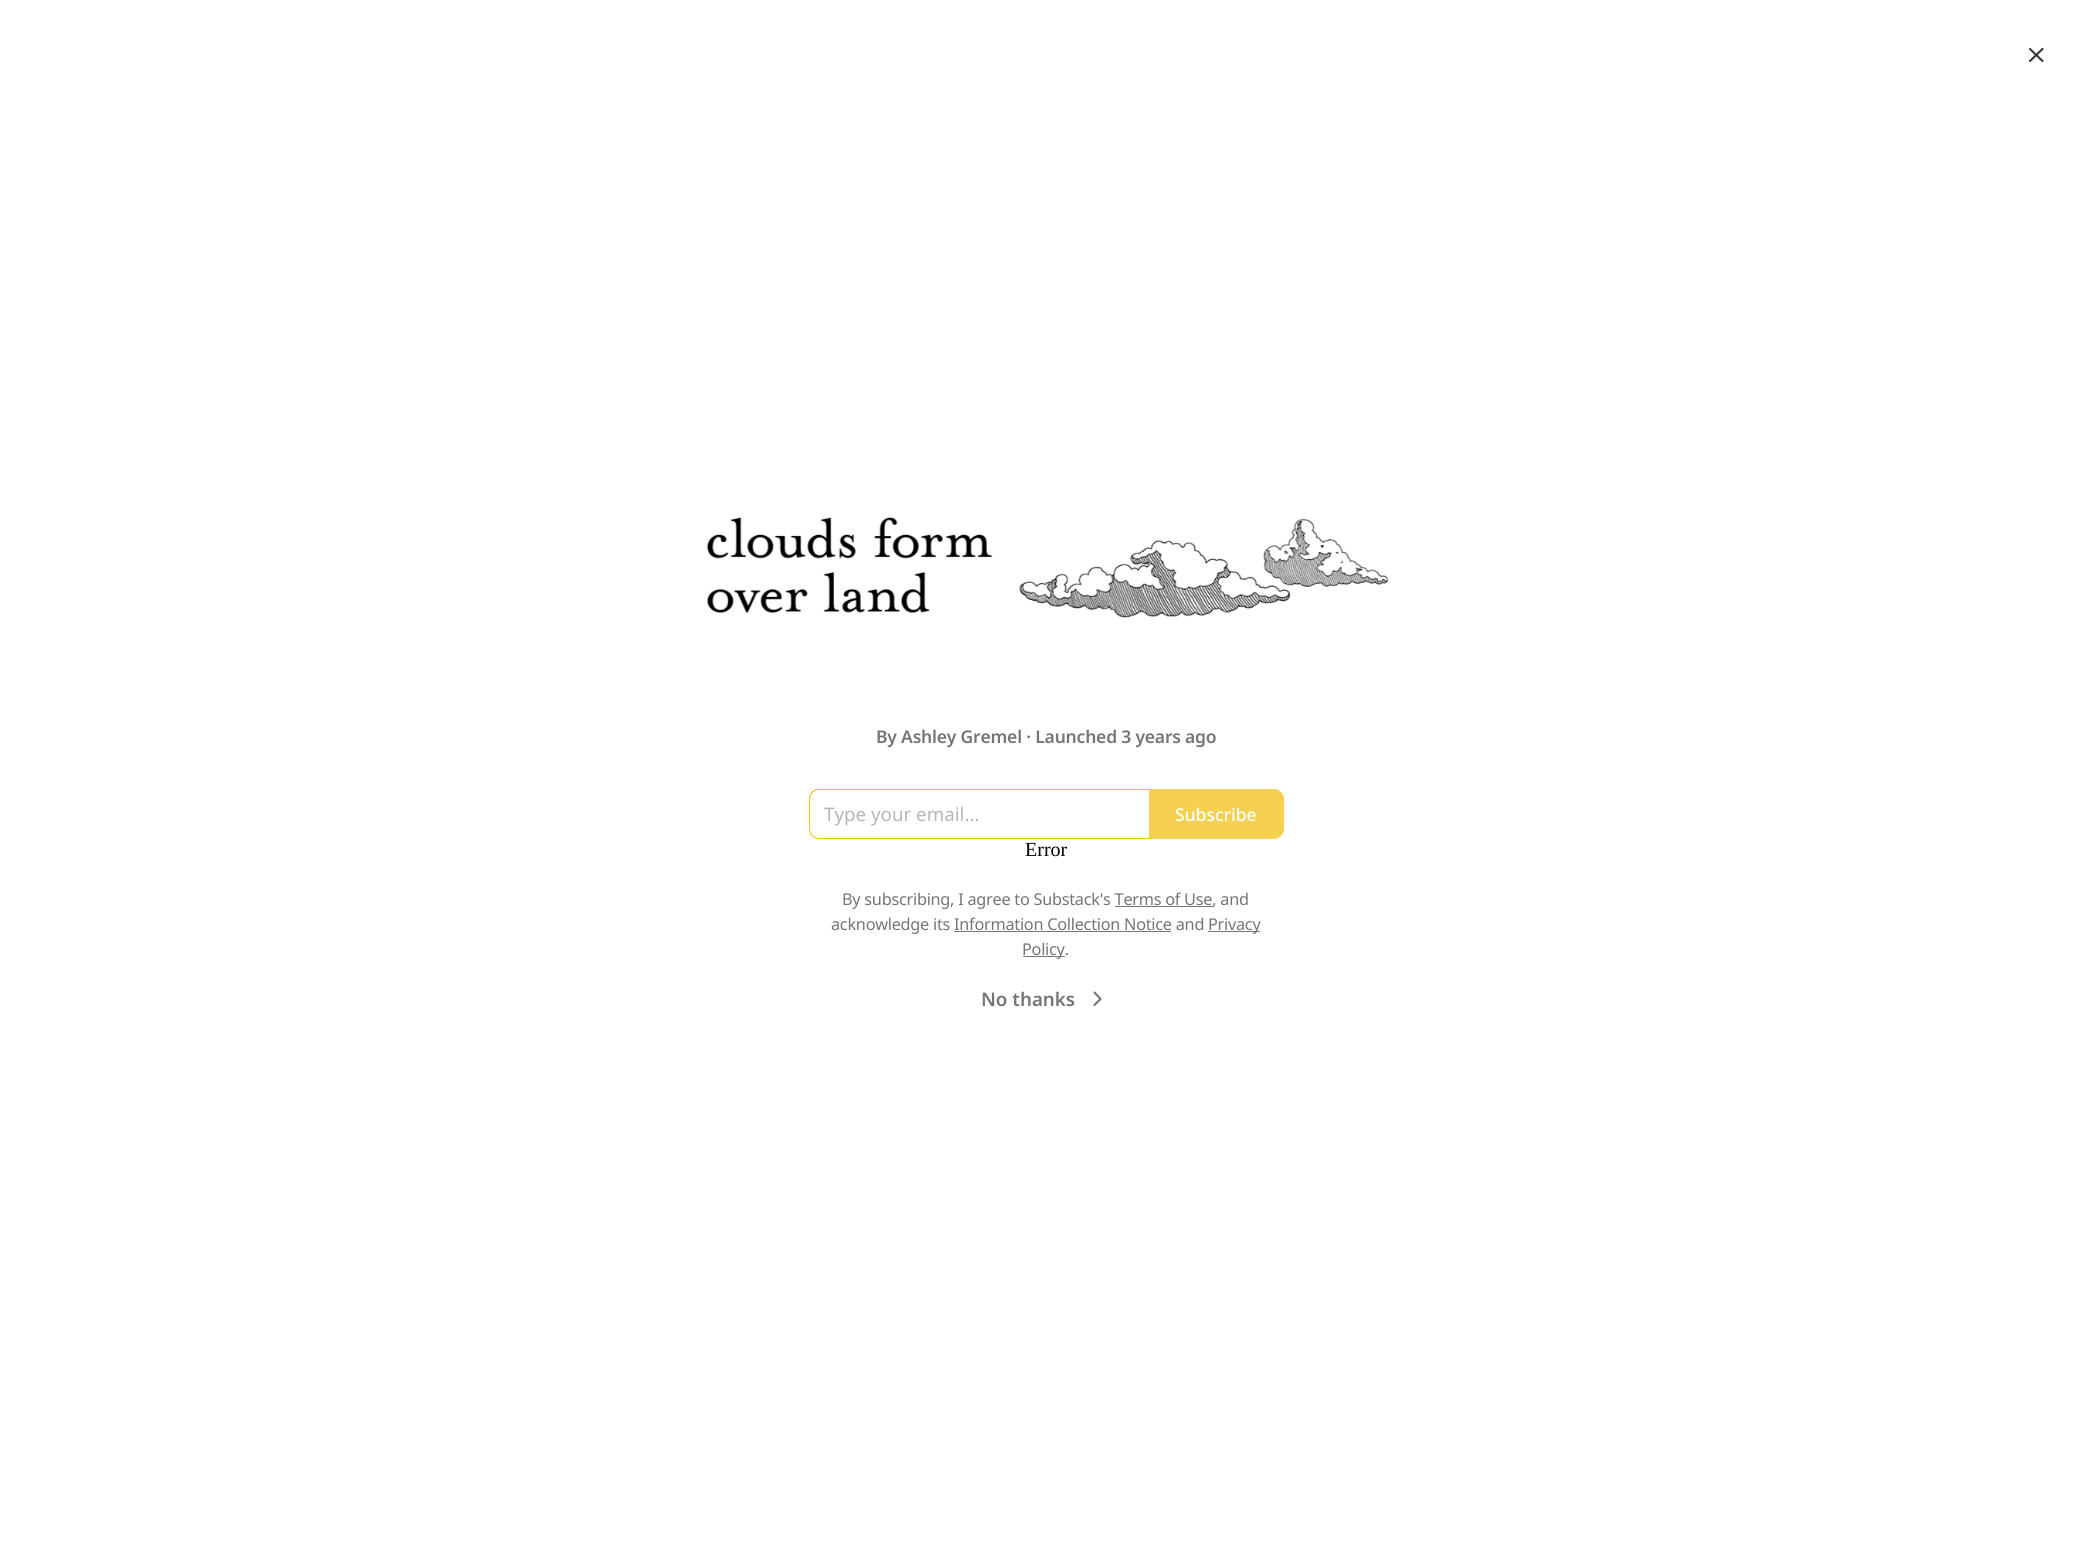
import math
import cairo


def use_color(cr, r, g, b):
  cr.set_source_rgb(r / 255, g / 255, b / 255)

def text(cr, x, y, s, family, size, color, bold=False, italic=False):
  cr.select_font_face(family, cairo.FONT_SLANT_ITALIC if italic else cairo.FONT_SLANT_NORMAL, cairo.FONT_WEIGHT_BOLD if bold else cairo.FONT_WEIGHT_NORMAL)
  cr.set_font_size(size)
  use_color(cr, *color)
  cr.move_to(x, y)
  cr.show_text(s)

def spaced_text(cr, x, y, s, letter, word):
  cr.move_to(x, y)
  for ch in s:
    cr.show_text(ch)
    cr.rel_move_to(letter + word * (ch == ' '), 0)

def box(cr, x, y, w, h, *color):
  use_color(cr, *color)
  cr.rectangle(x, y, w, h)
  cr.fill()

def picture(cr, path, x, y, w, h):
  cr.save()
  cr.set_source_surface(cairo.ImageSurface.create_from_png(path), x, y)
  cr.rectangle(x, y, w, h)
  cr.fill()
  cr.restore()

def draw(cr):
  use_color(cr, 255, 255, 255)
  cr.paint()
  cr.new_path()
  cr.move_to(2042.5, 49)
  cr.line_to(2030, 61)
  cr.move_to(2030, 49)
  cr.line_to(2042.5, 61)
  use_color(cr, 54, 55, 55)
  cr.set_line_width(2.1)
  cr.set_line_cap(cairo.LINE_CAP_ROUND)
  cr.set_line_join(cairo.LINE_JOIN_ROUND)
  cr.stroke()
  picture(cr, "img_01.png", 706, 517, 683, 101)
  use_color(cr, 243, 192, 22)
  cr.set_fill_rule(cairo.FILL_RULE_EVEN_ODD)
  cr.new_path()
  cr.move_to(819, 789)
  cr.line_to(1149, 789)
  cr.line_to(1149, 839)
  cr.line_to(819, 839)
  cr.curve_to(813, 839, 809, 834, 809, 829)
  cr.line_to(809, 799)
  cr.curve_to(809, 793, 813, 789, 819, 789)
  cr.close_path()
  cr.move_to(819, 790)
  cr.line_to(1149, 790)
  cr.line_to(1149, 838)
  cr.line_to(819, 838)
  cr.curve_to(814, 838, 810, 834, 810, 829)
  cr.line_to(810, 799)
  cr.curve_to(810, 794, 814, 790, 819, 790)
  cr.close_path()
  cr.fill()
  use_color(cr, 246, 208, 80)
  cr.new_path()
  cr.move_to(1149.5, 789.5)
  cr.line_to(1274, 789.5)
  cr.curve_to(1279, 789.5, 1283.5, 794, 1283.5, 799)
  cr.line_to(1283.5, 829)
  cr.curve_to(1283.5, 834, 1279, 838.5, 1274, 838.5)
  cr.line_to(1149.5, 838.5)
  cr.close_path()
  cr.fill_preserve()
  cr.set_line_width(1)
  cr.set_line_cap(cairo.LINE_CAP_BUTT)
  cr.set_line_join(cairo.LINE_JOIN_MITER)
  cr.stroke()
  box(cr, 1208, 931, 52, 1, 119, 119, 119)
  box(cr, 1023, 956, 42, 1, 119, 119, 119)
  cr.new_path()
  cr.move_to(1094.5, 1005)
  cr.line_to(1100.5, 999)
  cr.line_to(1094.5, 992.5)
  use_color(cr, 117, 117, 117)
  cr.set_line_width(2.1)
  cr.set_line_cap(cairo.LINE_CAP_ROUND)
  cr.set_line_join(cairo.LINE_JOIN_ROUND)
  cr.stroke()
  cr.select_font_face("Noto Sans SemiBold")
  cr.set_font_size(17.5)
  spaced_text(cr, 876, 743, "By Ashley Gremel · Launched 3 years ago", -0.2, 0)
  text(cr, 824, 821, "Type your email...", "Noto Sans", 18.75, (182, 182, 182))
  text(cr, 1175, 821, "Subscribe", "Noto Sans Medium", 17.5, (255, 255, 255))
  text(cr, 1025, 856, "Error", "Liberation Serif", 20, (0, 0, 0))
  cr.select_font_face("Noto Sans")
  cr.set_font_size(16.25)
  use_color(cr, 117, 117, 117)
  spaced_text(cr, 842, 905, "By subscribing, I agree to Substack's Terms of Use, and", -0.25, 0)
  box(cr, 1115, 906, 98, 1, 119, 119, 119)
  use_color(cr, 117, 117, 117)
  spaced_text(cr, 831, 930, "acknowledge its Information Collection Notice and", -0.25, 0)
  spaced_text(cr, 1208, 930, "Privacy", -0.25, 0)
  box(cr, 954, 931, 217, 1, 119, 119, 119)
  use_color(cr, 117, 117, 117)
  spaced_text(cr, 1022, 955, "Policy.", -0.25, 0)
  text(cr, 981, 1006, "No thanks", "Noto Sans SemiBold", 18.75, (117, 117, 117))


surface = cairo.ImageSurface(cairo.FORMAT_RGB24, 2091, 1564)
cr = cairo.Context(surface)
options = cairo.FontOptions()
options.set_hint_metrics(cairo.HINT_METRICS_OFF)
options.set_hint_style(cairo.HINT_STYLE_NONE)
cr.set_font_options(options)
cr.set_miter_limit(4)
draw(cr)
surface.write_to_png("out.png")
